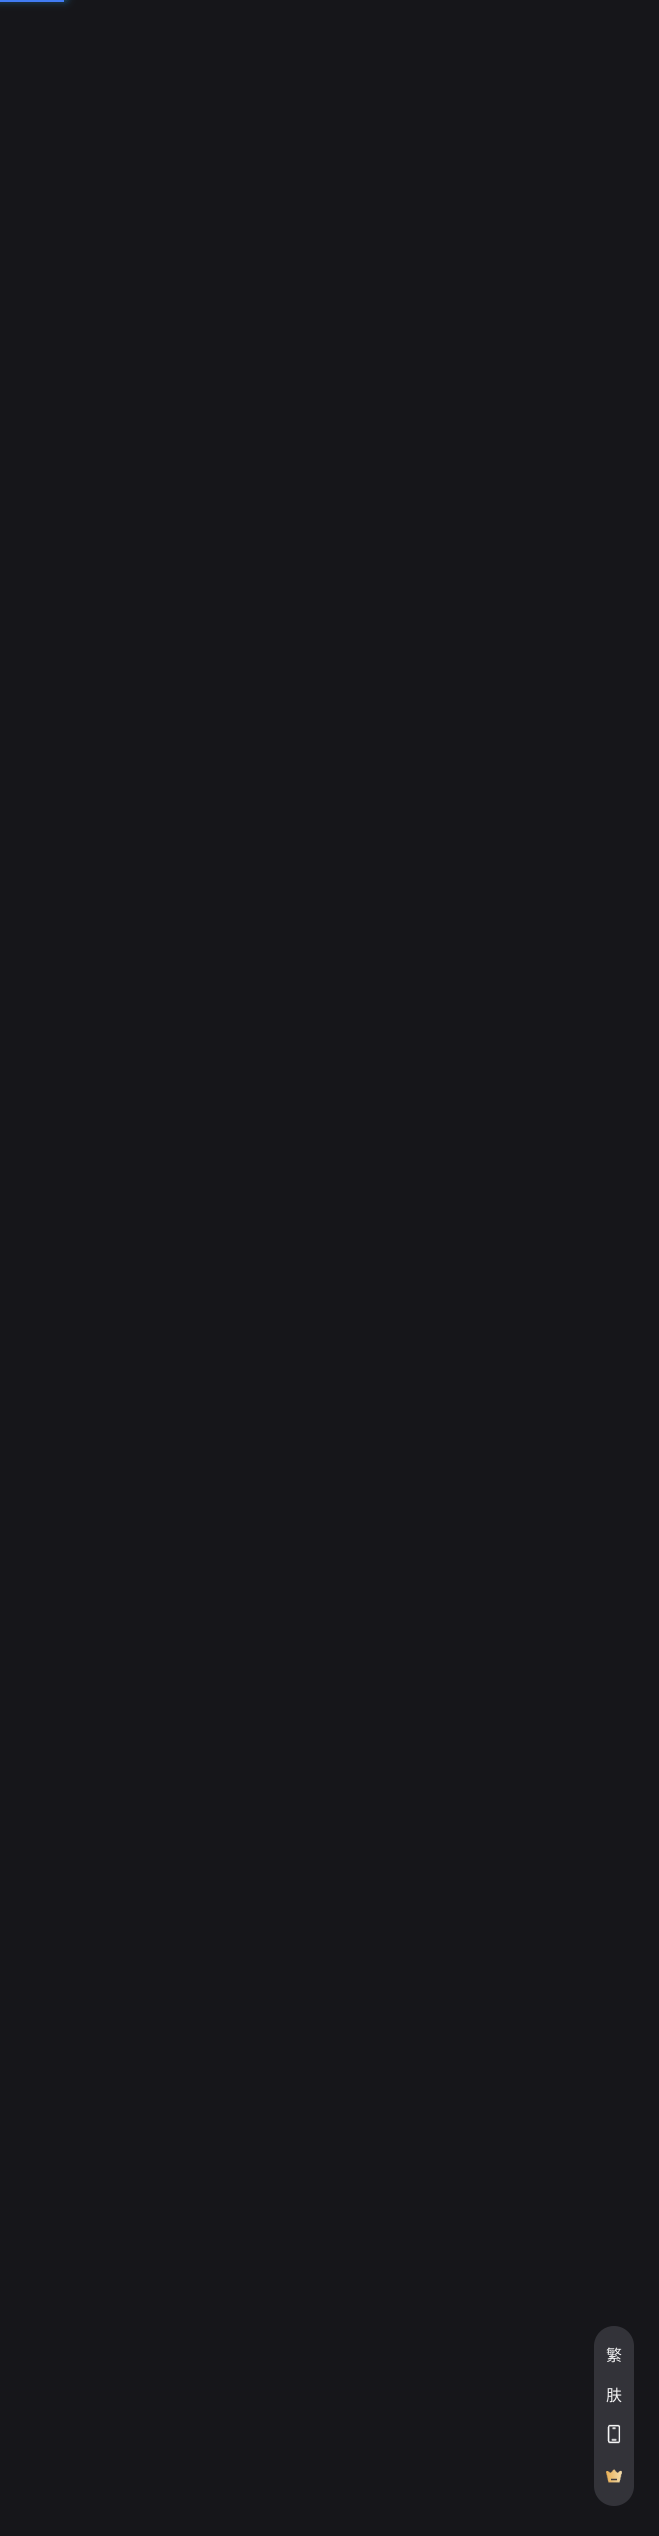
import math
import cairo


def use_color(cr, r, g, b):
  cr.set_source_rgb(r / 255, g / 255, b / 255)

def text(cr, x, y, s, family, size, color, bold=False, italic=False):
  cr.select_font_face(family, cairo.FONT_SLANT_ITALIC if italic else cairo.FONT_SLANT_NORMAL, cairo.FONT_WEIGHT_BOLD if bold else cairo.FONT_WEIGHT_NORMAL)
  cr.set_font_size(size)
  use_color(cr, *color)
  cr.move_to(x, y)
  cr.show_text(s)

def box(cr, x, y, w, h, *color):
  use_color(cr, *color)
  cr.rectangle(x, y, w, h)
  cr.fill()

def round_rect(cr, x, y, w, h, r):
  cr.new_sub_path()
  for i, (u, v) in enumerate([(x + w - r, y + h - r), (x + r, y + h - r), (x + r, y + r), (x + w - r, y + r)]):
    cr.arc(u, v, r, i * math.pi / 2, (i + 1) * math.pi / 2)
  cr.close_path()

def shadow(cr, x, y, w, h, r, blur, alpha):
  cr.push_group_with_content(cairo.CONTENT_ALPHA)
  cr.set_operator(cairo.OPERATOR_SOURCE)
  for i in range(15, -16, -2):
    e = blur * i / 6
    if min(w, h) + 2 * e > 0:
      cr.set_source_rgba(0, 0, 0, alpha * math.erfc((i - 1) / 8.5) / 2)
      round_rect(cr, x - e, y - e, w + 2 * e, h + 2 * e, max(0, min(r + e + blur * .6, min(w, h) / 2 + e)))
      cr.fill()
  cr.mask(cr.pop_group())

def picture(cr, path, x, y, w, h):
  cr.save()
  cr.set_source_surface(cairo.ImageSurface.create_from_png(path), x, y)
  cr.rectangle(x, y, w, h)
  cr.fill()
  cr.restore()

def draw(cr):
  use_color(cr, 22, 22, 26)
  cr.paint()
  box(cr, 0, 0, 64, 2, 77, 112, 255)
  use_color(cr, 34, 153, 221)
  shadow(cr, -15, -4, 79, 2, 0, 5, 1)
  use_color(cr, 51, 51, 57)
  round_rect(cr, 594, 2326, 40, 180, 20)
  cr.fill()
  picture(cr, "img_01.png", 607, 2424, 14, 20)
  picture(cr, "img_02.png", 606, 2469, 16, 14)
  text(cr, 606, 2361, "繁", "Noto Sans CJK SC", 16, (243, 243, 244))
  text(cr, 606, 2401, "肤", "Noto Sans CJK SC", 16, (243, 243, 244))


surface = cairo.ImageSurface(cairo.FORMAT_RGB24, 659, 2536)
cr = cairo.Context(surface)
options = cairo.FontOptions()
options.set_hint_metrics(cairo.HINT_METRICS_OFF)
options.set_hint_style(cairo.HINT_STYLE_NONE)
cr.set_font_options(options)
cr.set_miter_limit(4)
draw(cr)
surface.write_to_png("out.png")
